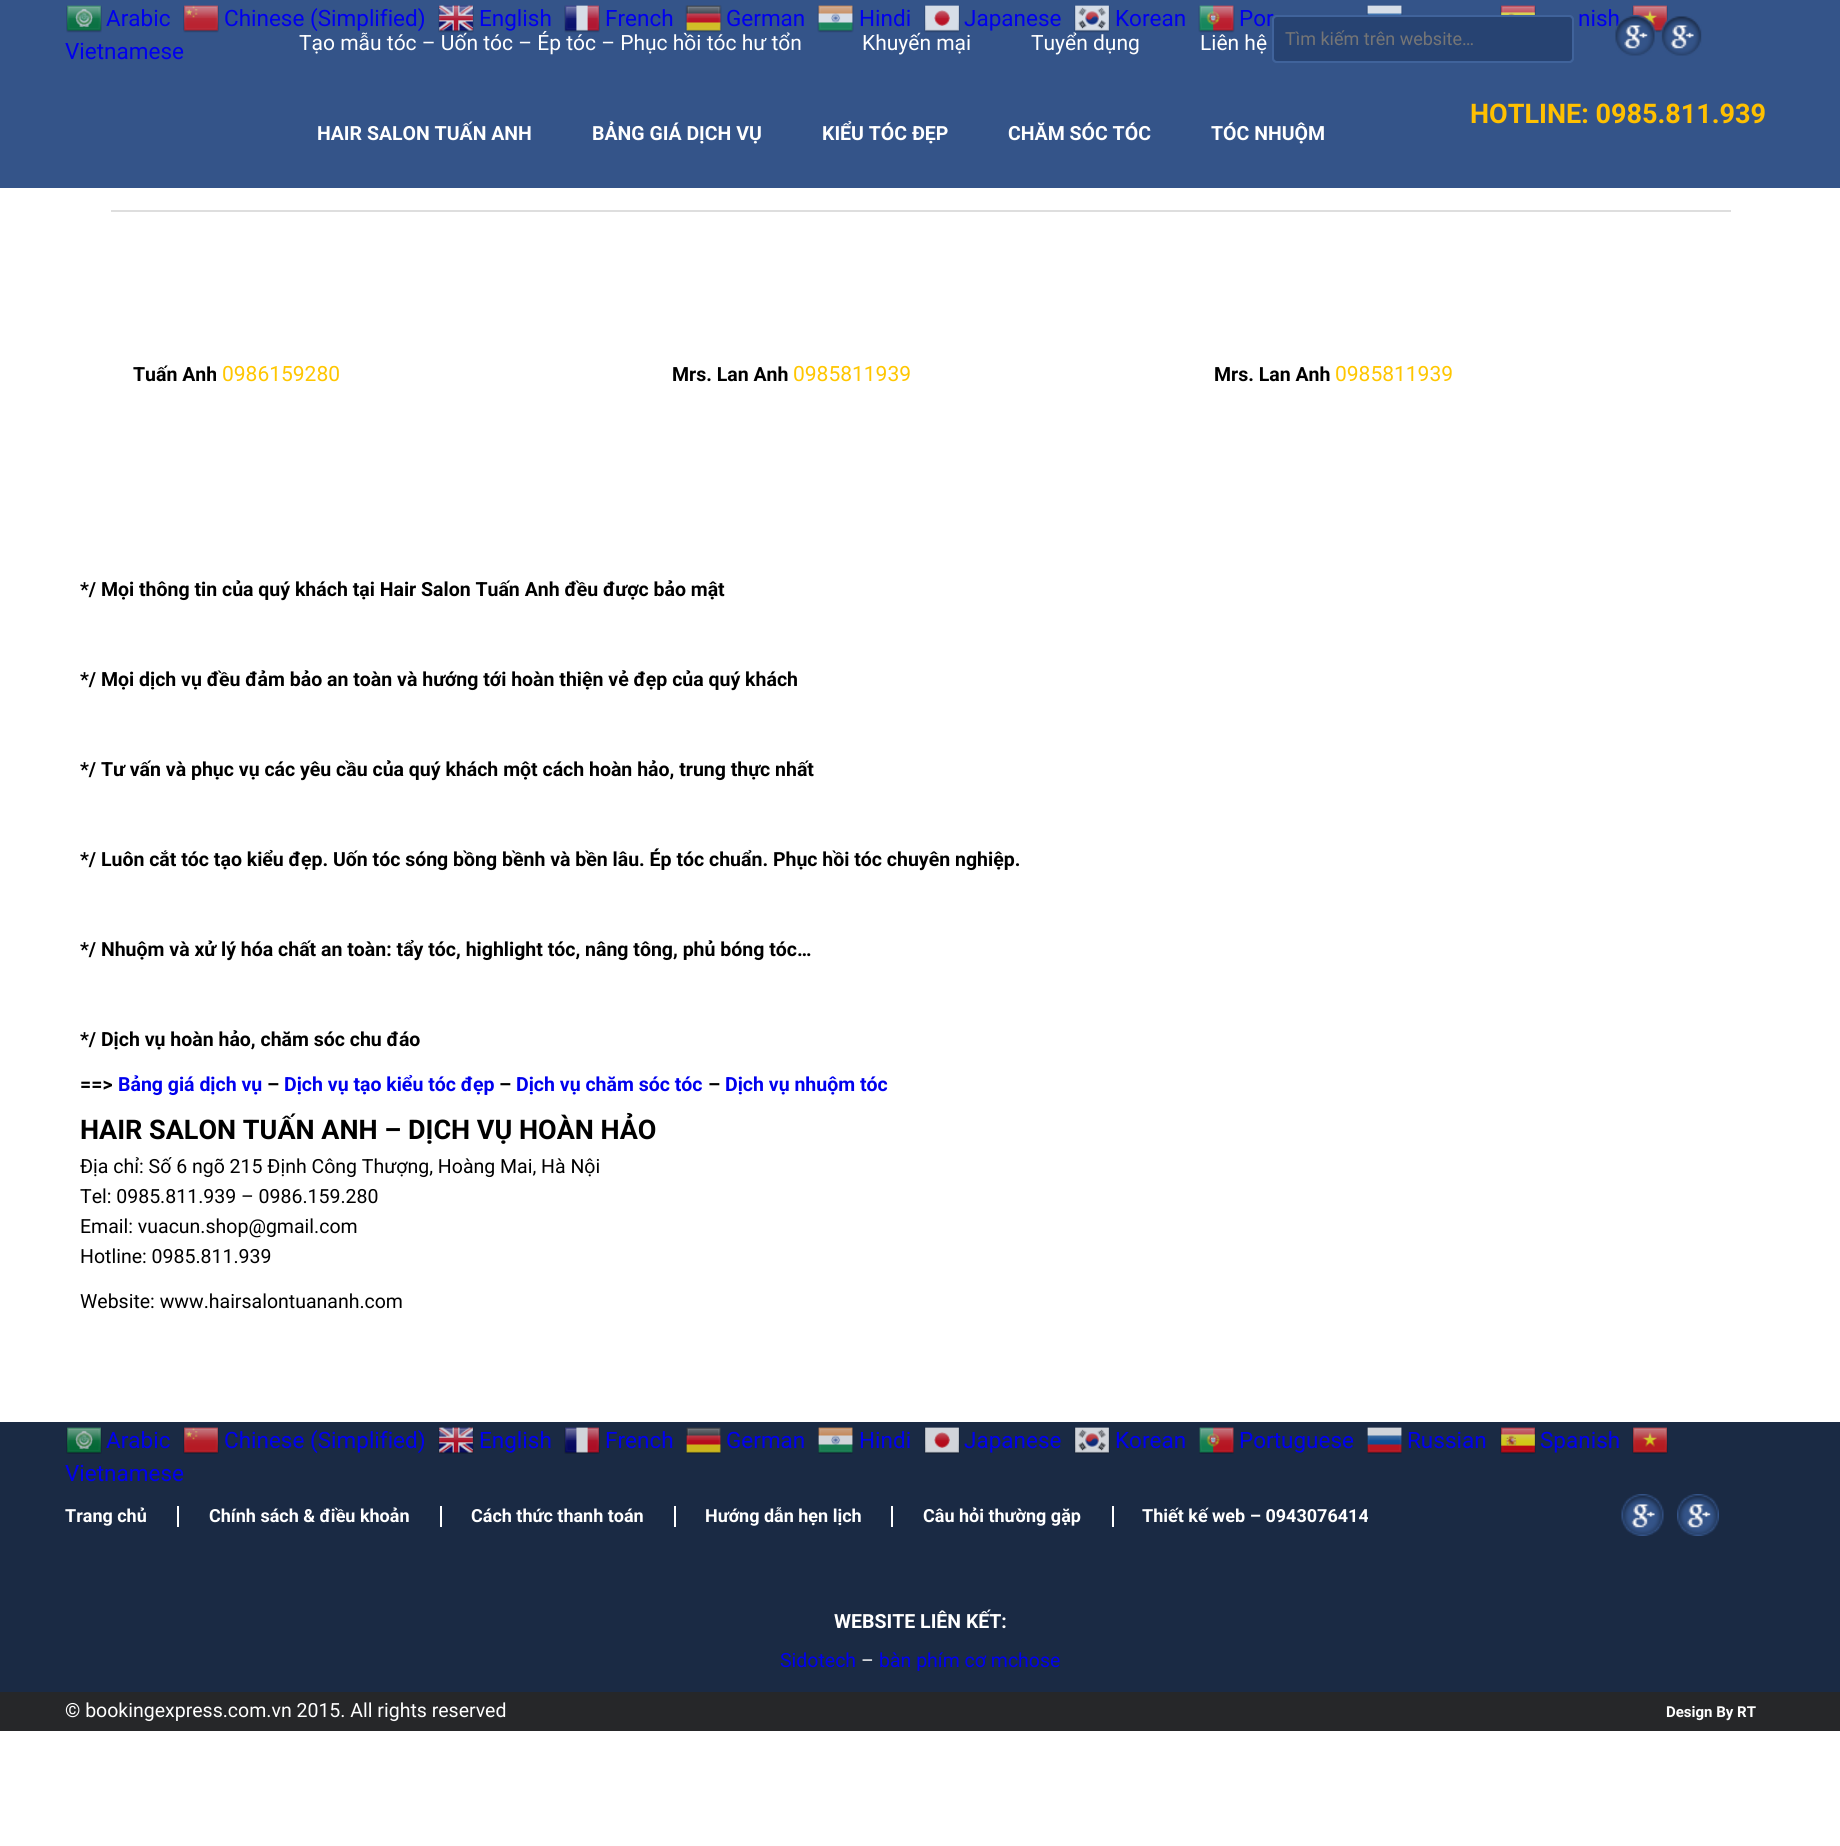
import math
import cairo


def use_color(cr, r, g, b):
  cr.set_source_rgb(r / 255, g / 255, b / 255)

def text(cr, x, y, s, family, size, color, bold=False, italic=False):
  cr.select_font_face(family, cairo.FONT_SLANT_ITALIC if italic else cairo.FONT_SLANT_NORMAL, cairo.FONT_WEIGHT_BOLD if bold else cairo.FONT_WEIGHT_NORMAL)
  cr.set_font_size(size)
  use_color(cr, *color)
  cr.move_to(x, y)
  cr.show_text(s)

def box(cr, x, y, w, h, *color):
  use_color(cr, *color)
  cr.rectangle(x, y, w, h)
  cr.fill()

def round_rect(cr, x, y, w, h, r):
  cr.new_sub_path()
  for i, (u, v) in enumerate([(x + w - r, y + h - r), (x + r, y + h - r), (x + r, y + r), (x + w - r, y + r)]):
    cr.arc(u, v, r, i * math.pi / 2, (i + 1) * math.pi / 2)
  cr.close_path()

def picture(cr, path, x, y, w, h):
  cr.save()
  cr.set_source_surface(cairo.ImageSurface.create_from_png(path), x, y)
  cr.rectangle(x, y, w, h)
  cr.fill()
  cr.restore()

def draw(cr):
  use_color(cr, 255, 255, 255)
  cr.paint()
  box(cr, 0, 0, 1840, 188, 52, 84, 137)
  picture(cr, "img_01.png", 66, 5, 36, 28)
  picture(cr, "img_02.png", 183, 5, 36, 28)
  picture(cr, "img_03.png", 438, 5, 36, 28)
  picture(cr, "img_04.png", 564, 5, 36, 28)
  picture(cr, "img_05.png", 685, 5, 37, 28)
  picture(cr, "img_06.png", 817, 5, 37, 28)
  picture(cr, "img_07.png", 924, 5, 36, 28)
  picture(cr, "img_08.png", 1074, 5, 36, 28)
  picture(cr, "img_09.png", 1198, 5, 37, 28)
  picture(cr, "img_10.png", 1366, 5, 37, 10)
  picture(cr, "img_11.png", 1500, 5, 36, 10)
  picture(cr, "img_12.png", 1632, 5, 36, 28)
  picture(cr, "img_14.png", 1660, 16, 42, 40)
  box(cr, 111, 210, 1620, 2, 222, 222, 222)
  box(cr, 0, 1422, 1840, 270, 26, 42, 68)
  picture(cr, "img_15.png", 66, 1427, 36, 27)
  picture(cr, "img_16.png", 183, 1427, 36, 27)
  picture(cr, "img_17.png", 438, 1427, 36, 27)
  picture(cr, "img_18.png", 564, 1427, 36, 27)
  picture(cr, "img_19.png", 686, 1427, 35, 27)
  picture(cr, "img_20.png", 818, 1427, 35, 27)
  picture(cr, "img_21.png", 924, 1427, 36, 27)
  picture(cr, "img_22.png", 1074, 1427, 36, 27)
  picture(cr, "img_23.png", 1199, 1427, 35, 27)
  picture(cr, "img_24.png", 1367, 1427, 35, 27)
  picture(cr, "img_25.png", 1500, 1427, 36, 27)
  picture(cr, "img_26.png", 1632, 1427, 36, 27)
  box(cr, 177, 1506, 2, 21, 255, 255, 255)
  box(cr, 440, 1506, 2, 21, 255, 255, 255)
  box(cr, 674, 1506, 2, 21, 255, 255, 255)
  box(cr, 891, 1506, 2, 21, 255, 255, 255)
  box(cr, 1112, 1506, 2, 21, 255, 255, 255)
  picture(cr, "img_27.png", 1621, 1494, 43, 42)
  picture(cr, "img_28.png", 1677, 1494, 42, 42)
  box(cr, 0, 1692, 1840, 39, 38, 39, 41)
  text(cr, 106, 26, "Arabic", "Roboto", 22.5, (0, 0, 238))
  text(cr, 224, 26, "Chinese (Simplified)", "Roboto", 22.5, (0, 0, 238))
  text(cr, 479, 26, "English", "Roboto", 22.5, (0, 0, 238))
  text(cr, 605, 26, "French", "Roboto", 22.5, (0, 0, 238))
  text(cr, 726, 26, "German", "Roboto", 22.5, (0, 0, 238))
  text(cr, 859, 26, "Hindi", "Roboto", 22.5, (0, 0, 238))
  text(cr, 964, 26, "Japanese", "Roboto", 22.5, (0, 0, 238))
  text(cr, 1115, 26, "Korean", "Roboto", 22.5, (0, 0, 238))
  text(cr, 1239, 26, "Por", "Roboto", 22.5, (0, 0, 238))
  text(cr, 1578, 26, "nish", "Roboto", 22.5, (0, 0, 238))
  text(cr, 65, 59, "Vietnamese", "Roboto", 22.5, (0, 0, 238))
  text(cr, 299, 50, "Tạo mẫu tóc – Uốn tóc – Ép tóc – Phục hồi tóc hư tổn", "Roboto", 21, (255, 255, 255))
  text(cr, 862, 50, "Khuyến mại", "Roboto", 21, (255, 255, 255))
  text(cr, 1031, 50, "Tuyển dụng", "Roboto", 21, (255, 255, 255))
  text(cr, 1200, 50, "Liên hệ", "Roboto", 21, (255, 255, 255))
  round_rect(cr, 1273, 16, 300, 46, 4)
  use_color(cr, 64, 99, 155)
  cr.stroke()
  picture(cr, "img_13.png", 1615, 15, 41, 41)
  use_color(cr, 39, 67, 114)
  round_rect(cr, 1273, 16, 300, 46, 4)
  cr.fill_preserve()
  use_color(cr, 64, 99, 155)
  cr.stroke()
  text(cr, 1285, 45, "Tìm kiếm trên website…", "Roboto", 18, (117, 117, 117))
  text(cr, 1470, 123, "HOTLINE: 0985.811.939", "Roboto", 27, (255, 192, 0), bold=True)
  text(cr, 317, 140, "HAIR SALON TUẤN ANH", "Roboto", 19.5, (255, 255, 255), bold=True)
  text(cr, 592, 140, "BẢNG GIÁ DỊCH VỤ", "Roboto", 19.5, (255, 255, 255), bold=True)
  text(cr, 822, 140, "KIỂU TÓC ĐẸP", "Roboto", 19.5, (255, 255, 255), bold=True)
  text(cr, 1008, 140, "CHĂM SÓC TÓC", "Roboto", 19.5, (255, 255, 255), bold=True)
  text(cr, 1211, 140, "TÓC NHUỘM", "Roboto", 19.5, (255, 255, 255), bold=True)
  text(cr, 133, 381, "Tuấn Anh", "Roboto", 19.5, (0, 0, 0), bold=True)
  text(cr, 222, 381, "0986159280", "Roboto", 21, (255, 198, 0))
  text(cr, 672, 381, "Mrs. Lan Anh", "Roboto", 19.5, (0, 0, 0), bold=True)
  text(cr, 793, 381, "0985811939", "Roboto", 21, (255, 198, 0))
  text(cr, 1214, 381, "Mrs. Lan Anh", "Roboto", 19.5, (0, 0, 0), bold=True)
  text(cr, 1335, 381, "0985811939", "Roboto", 21, (255, 198, 0))
  text(cr, 80, 596, "*/ Mọi thông tin của quý khách tại Hair Salon Tuấn Anh đều được bảo mật", "Roboto", 19.5, (0, 0, 0), bold=True)
  text(cr, 80, 686, "*/ Mọi dịch vụ đều đảm bảo an toàn và hướng tới hoàn thiện vẻ đẹp của quý khách", "Roboto", 19.5, (0, 0, 0), bold=True)
  text(cr, 80, 776, "*/ Tư vấn và phục vụ các yêu cầu của quý khách một cách hoàn hảo, trung thực nhất", "Roboto", 19.5, (0, 0, 0), bold=True)
  text(cr, 80, 866, "*/ Luôn cắt tóc tạo kiểu đẹp. Uốn tóc sóng bồng bềnh và bền lâu. Ép tóc chuẩn. Phục hồi tóc chuyên nghiệp.", "Roboto", 19.5, (0, 0, 0), bold=True)
  text(cr, 80, 956, "*/ Nhuộm và xử lý hóa chất an toàn: tẩy tóc, highlight tóc, nâng tông, phủ bóng tóc…", "Roboto", 19.5, (0, 0, 0), bold=True)
  text(cr, 80, 1046, "*/ Dịch vụ hoàn hảo, chăm sóc chu đáo", "Roboto", 19.5, (0, 0, 0), bold=True)
  text(cr, 80, 1091, "==>", "Roboto", 19.5, (0, 0, 0), bold=True)
  text(cr, 118, 1091, "Bảng giá dịch vụ", "Roboto", 19.5, (0, 0, 238), bold=True)
  text(cr, 267, 1091, "–", "Roboto", 19.5, (0, 0, 0), bold=True)
  text(cr, 284, 1091, "Dịch vụ tạo kiểu tóc đẹp", "Roboto", 19.5, (0, 0, 238), bold=True)
  text(cr, 499, 1091, "–", "Roboto", 19.5, (0, 0, 0), bold=True)
  text(cr, 516, 1091, "Dịch vụ chăm sóc tóc", "Roboto", 19.5, (0, 0, 238), bold=True)
  text(cr, 708, 1091, "–", "Roboto", 19.5, (0, 0, 0), bold=True)
  text(cr, 725, 1091, "Dịch vụ nhuộm tóc", "Roboto", 19.5, (0, 0, 238), bold=True)
  text(cr, 80, 1139, "HAIR SALON TUẤN ANH – DỊCH VỤ HOÀN HẢO", "Roboto", 27, (0, 0, 0), bold=True)
  text(cr, 80, 1173, "Địa chỉ: Số 6 ngõ 215 Định Công Thượng, Hoàng Mai, Hà Nội", "Roboto", 19.5, (0, 0, 0))
  text(cr, 80, 1203, "Tel: 0985.811.939 – 0986.159.280", "Roboto", 19.5, (0, 0, 0))
  text(cr, 80, 1233, "Email: vuacun.shop@gmail.com", "Roboto", 19.5, (0, 0, 0))
  text(cr, 80, 1263, "Hotline: 0985.811.939", "Roboto", 19.5, (0, 0, 0))
  text(cr, 80, 1308, "Website: www.hairsalontuananh.com", "Roboto", 19.5, (0, 0, 0))
  text(cr, 106, 1448, "Arabic", "Roboto", 22.5, (0, 0, 238))
  text(cr, 224, 1448, "Chinese (Simplified)", "Roboto", 22.5, (0, 0, 238))
  text(cr, 479, 1448, "English", "Roboto", 22.5, (0, 0, 238))
  text(cr, 605, 1448, "French", "Roboto", 22.5, (0, 0, 238))
  text(cr, 726, 1448, "German", "Roboto", 22.5, (0, 0, 238))
  text(cr, 859, 1448, "Hindi", "Roboto", 22.5, (0, 0, 238))
  text(cr, 964, 1448, "Japanese", "Roboto", 22.5, (0, 0, 238))
  text(cr, 1115, 1448, "Korean", "Roboto", 22.5, (0, 0, 238))
  text(cr, 1239, 1448, "Portuguese", "Roboto", 22.5, (0, 0, 238))
  text(cr, 1407, 1448, "Russian", "Roboto", 22.5, (0, 0, 238))
  text(cr, 1540, 1448, "Spanish", "Roboto", 22.5, (0, 0, 238))
  text(cr, 65, 1481, "Vietnamese", "Roboto", 22.5, (0, 0, 238))
  text(cr, 65, 1522, "Trang chủ", "Roboto", 18, (255, 255, 255), bold=True)
  text(cr, 209, 1522, "Chính sách & điều khoản", "Roboto", 18, (255, 255, 255), bold=True)
  text(cr, 471, 1522, "Cách thức thanh toán", "Roboto", 18, (255, 255, 255), bold=True)
  text(cr, 705, 1522, "Hướng dẫn hẹn lịch", "Roboto", 18, (255, 255, 255), bold=True)
  text(cr, 923, 1522, "Câu hỏi thường gặp", "Roboto", 18, (255, 255, 255), bold=True)
  text(cr, 1142, 1522, "Thiết kế web – 0943076414", "Roboto", 18, (255, 255, 255), bold=True)
  text(cr, 834, 1628, "WEBSITE LIÊN KẾT:", "Roboto", 19.5, (255, 255, 255), bold=True)
  text(cr, 780, 1667, "Sidotech", "Roboto", 19.5, (0, 0, 238))
  text(cr, 861, 1667, "–", "Roboto", 19.5, (255, 255, 255))
  text(cr, 879, 1667, "bàn phím cơ mchose", "Roboto", 19.5, (0, 0, 238))
  text(cr, 65, 1717, "© bookingexpress.com.vn 2015. All rights reserved", "Roboto", 19.5, (255, 255, 255))
  text(cr, 1666, 1717, "Design By RT", "Roboto", 15, (255, 255, 255), bold=True)


surface = cairo.ImageSurface(cairo.FORMAT_RGB24, 1840, 1846)
cr = cairo.Context(surface)
options = cairo.FontOptions()
options.set_hint_metrics(cairo.HINT_METRICS_OFF)
options.set_hint_style(cairo.HINT_STYLE_NONE)
cr.set_font_options(options)
cr.set_miter_limit(4)
draw(cr)
surface.write_to_png("out.png")
